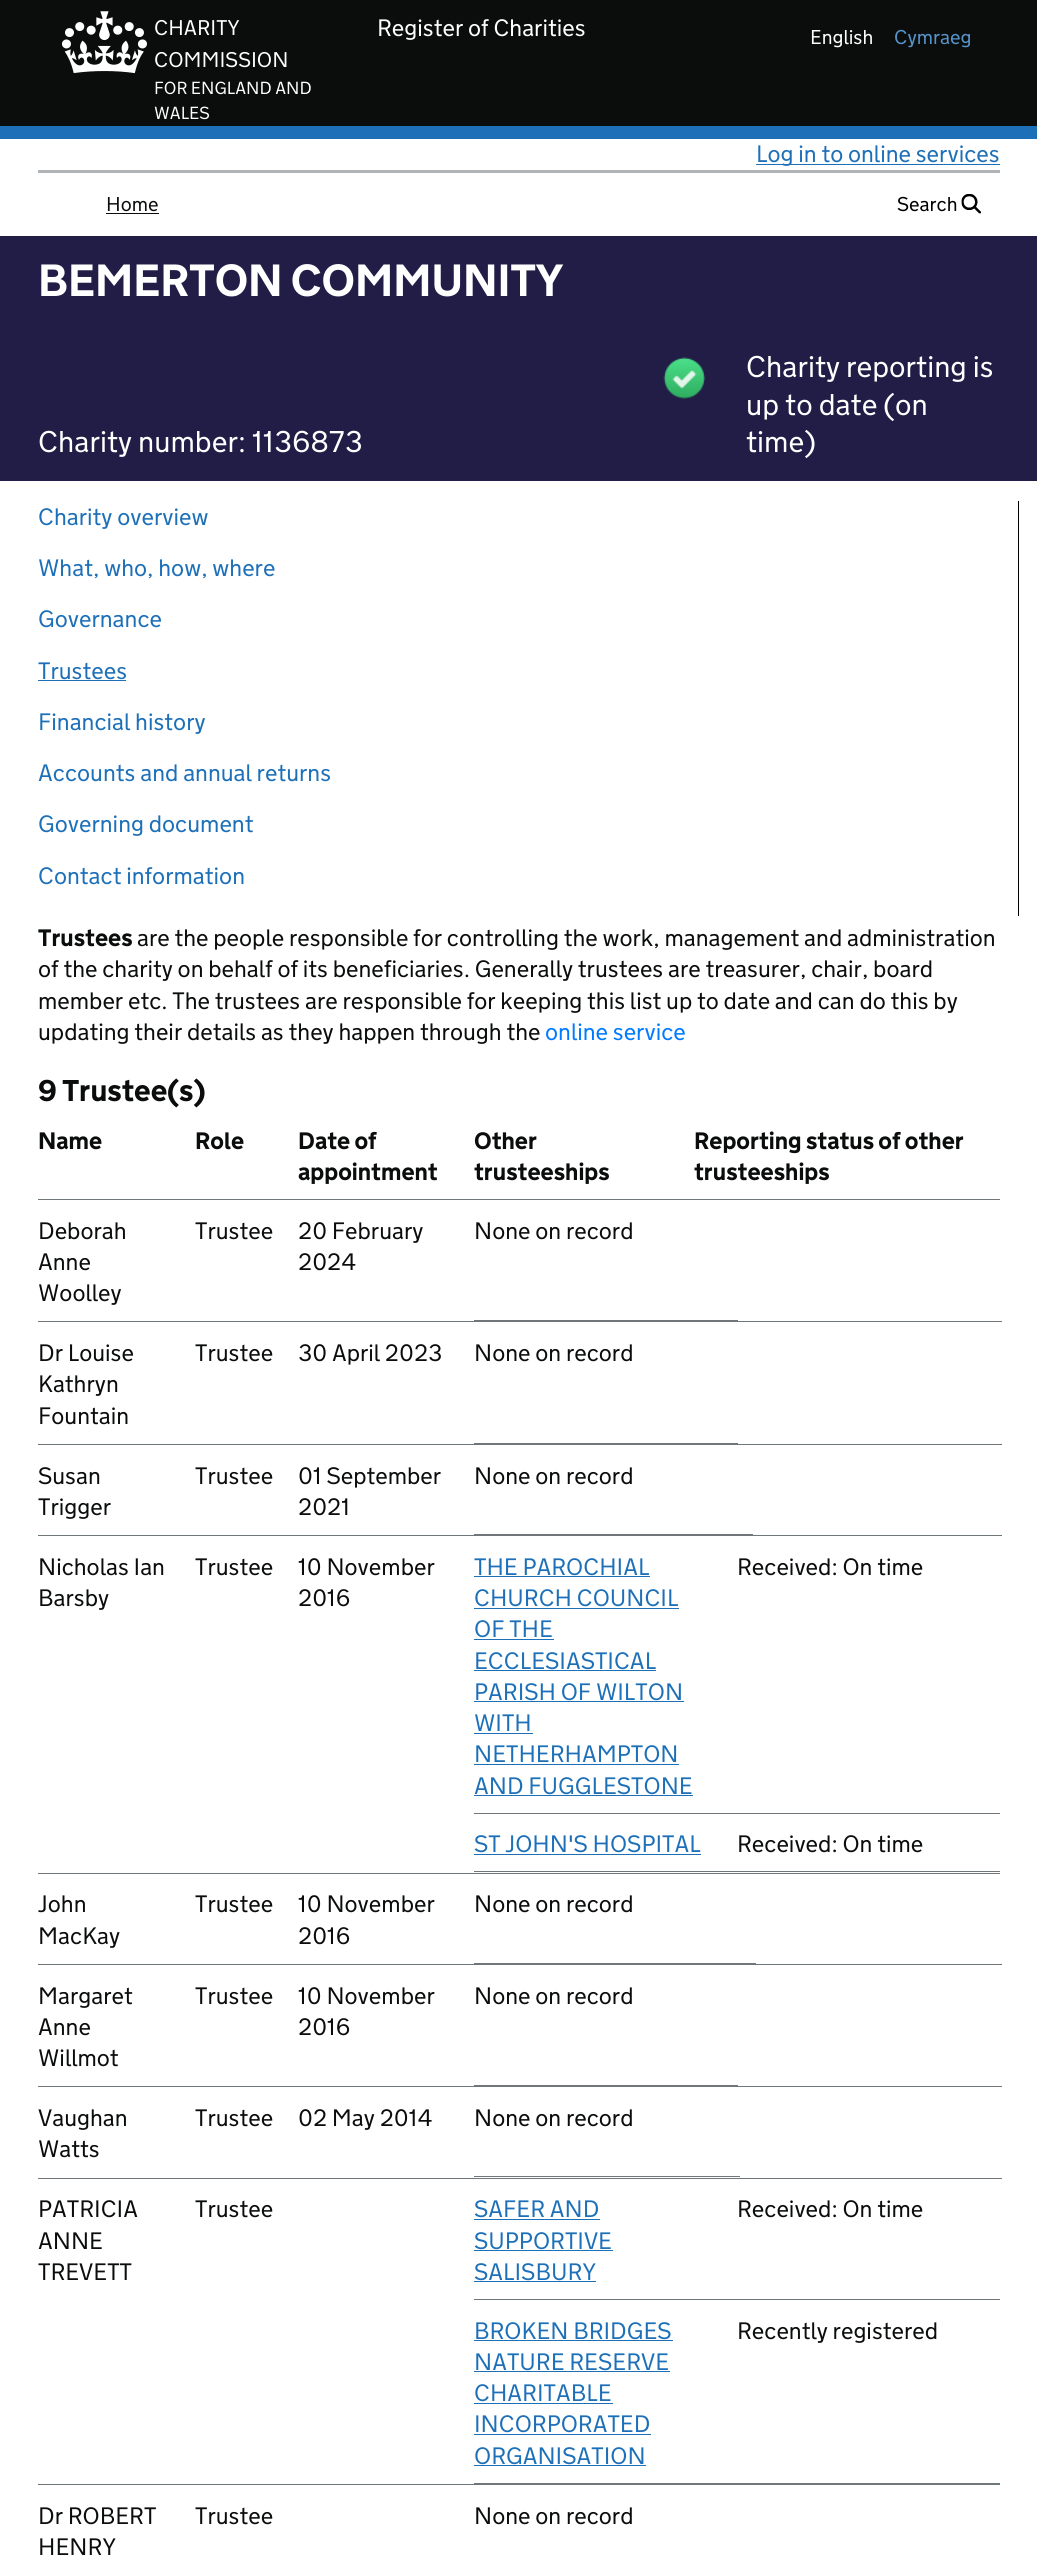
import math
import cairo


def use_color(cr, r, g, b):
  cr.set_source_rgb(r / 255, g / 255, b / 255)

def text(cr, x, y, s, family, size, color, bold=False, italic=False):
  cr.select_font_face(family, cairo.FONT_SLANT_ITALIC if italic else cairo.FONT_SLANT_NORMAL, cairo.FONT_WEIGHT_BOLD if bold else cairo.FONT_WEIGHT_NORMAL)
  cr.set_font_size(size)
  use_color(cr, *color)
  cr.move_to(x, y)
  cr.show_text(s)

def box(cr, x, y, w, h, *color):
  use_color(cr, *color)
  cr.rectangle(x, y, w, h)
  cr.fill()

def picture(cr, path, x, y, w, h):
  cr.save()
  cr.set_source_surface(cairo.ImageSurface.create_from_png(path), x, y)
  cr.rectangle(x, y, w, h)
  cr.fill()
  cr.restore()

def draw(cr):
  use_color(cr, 255, 255, 255)
  cr.paint()
  box(cr, 0, 0, 1037, 126, 11, 12, 12)
  box(cr, 0, 126, 1037, 13, 29, 112, 184)
  picture(cr, "img_01.png", 61, 11, 86, 63)
  box(cr, 38, 170, 962, 3, 177, 180, 182)
  box(cr, 756, 164, 244, 1, 29, 112, 184)
  box(cr, 106, 213, 53, 1, 11, 12, 12)
  picture(cr, "img_02.png", 961, 194, 20, 20)
  box(cr, 0, 236, 1037, 245, 33, 29, 71)
  picture(cr, "img_03.png", 663, 357, 43, 42)
  box(cr, 1018, 501, 1, 415, 0, 0, 0)
  box(cr, 38, 680, 88, 1, 29, 112, 184)
  box(cr, 38, 1199, 962, 1, 111, 119, 123)
  box(cr, 474, 1320, 264, 1, 111, 119, 123)
  box(cr, 38, 1321, 964, 1, 111, 119, 123)
  box(cr, 474, 1443, 264, 1, 111, 119, 123)
  box(cr, 38, 1444, 964, 1, 111, 119, 123)
  box(cr, 474, 1534, 279, 1, 111, 119, 123)
  box(cr, 38, 1535, 964, 1, 111, 119, 123)
  box(cr, 38, 1873, 962, 1, 111, 119, 123)
  box(cr, 474, 1576, 176, 1, 29, 112, 184)
  box(cr, 474, 1608, 205, 1, 29, 112, 184)
  box(cr, 474, 1639, 80, 1, 29, 112, 184)
  box(cr, 474, 1670, 182, 1, 29, 112, 184)
  box(cr, 474, 1701, 210, 1, 29, 112, 184)
  box(cr, 474, 1733, 59, 1, 29, 112, 184)
  box(cr, 474, 1764, 205, 1, 29, 112, 184)
  box(cr, 474, 1795, 219, 1, 29, 112, 184)
  box(cr, 474, 1813, 526, 1, 111, 119, 123)
  box(cr, 474, 1854, 227, 1, 29, 112, 184)
  box(cr, 474, 1871, 526, 1, 111, 119, 123)
  box(cr, 474, 1963, 282, 1, 111, 119, 123)
  box(cr, 38, 1964, 964, 1, 111, 119, 123)
  box(cr, 474, 2085, 264, 1, 111, 119, 123)
  box(cr, 38, 2086, 964, 1, 111, 119, 123)
  box(cr, 474, 2176, 266, 1, 111, 119, 123)
  box(cr, 38, 2178, 964, 1, 111, 119, 123)
  box(cr, 474, 2219, 126, 1, 29, 112, 184)
  box(cr, 474, 2250, 139, 1, 29, 112, 184)
  box(cr, 474, 2281, 122, 1, 29, 112, 184)
  box(cr, 474, 2299, 526, 1, 111, 119, 123)
  box(cr, 474, 2340, 199, 1, 29, 112, 184)
  box(cr, 474, 2371, 196, 1, 29, 112, 184)
  box(cr, 474, 2403, 139, 1, 29, 112, 184)
  box(cr, 474, 2434, 177, 1, 29, 112, 184)
  box(cr, 474, 2465, 172, 1, 29, 112, 184)
  box(cr, 474, 2483, 526, 2, 111, 119, 123)
  box(cr, 38, 2484, 437, 1, 111, 119, 123)
  text(cr, 154, 35, "CHARITY", "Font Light", 21.25, (255, 255, 255))
  text(cr, 154, 67, "COMMISSION", "Font Light", 21.25, (255, 255, 255))
  text(cr, 154, 94, "FOR ENGLAND AND", "Font Light", 17.5, (255, 255, 255))
  text(cr, 154, 119, "WALES", "Font Light", 17.5, (255, 255, 255))
  text(cr, 377, 36, "Register of Charities", "Font Light", 23.75, (255, 255, 255))
  text(cr, 810, 44, "English", "Font Light", 20, (255, 255, 255))
  text(cr, 894, 44, "Cymraeg", "Font Light", 20, (86, 148, 202))
  text(cr, 756, 162, "Log in to online services", "Font Light", 23.75, (29, 112, 184))
  text(cr, 106, 211, "Home", "Font Light", 20, (11, 12, 12))
  text(cr, 897, 211, "Search", "Font Light", 20, (0, 0, 0))
  text(cr, 38, 296, "BEMERTON COMMUNITY", "Font", 45, (255, 255, 255), bold=True)
  text(cr, 38, 452, "Charity number: 1136873", "Font Light", 30, (255, 255, 255))
  text(cr, 746, 377, "Charity reporting is", "Font Light", 30, (255, 255, 255))
  text(cr, 746, 415, "up to date (on", "Font Light", 30, (255, 255, 255))
  text(cr, 746, 452, "time)", "Font Light", 30, (255, 255, 255))
  text(cr, 38, 525, "Charity overview", "Font Light", 23.75, (29, 112, 184))
  text(cr, 38, 576, "What, who, how, where", "Font Light", 23.75, (29, 112, 184))
  text(cr, 38, 627, "Governance", "Font Light", 23.75, (29, 112, 184))
  text(cr, 38, 679, "Trustees", "Font Light", 23.75, (29, 112, 184))
  text(cr, 38, 730, "Financial history", "Font Light", 23.75, (29, 112, 184))
  text(cr, 38, 781, "Accounts and annual returns", "Font Light", 23.75, (29, 112, 184))
  text(cr, 38, 832, "Governing document", "Font Light", 23.75, (29, 112, 184))
  text(cr, 38, 884, "Contact information", "Font Light", 23.75, (29, 112, 184))
  text(cr, 38, 946, "Trustees", "Font", 23.75, (11, 12, 12), bold=True)
  text(cr, 137, 946, "are the people responsible for controlling the work, management and administration", "Font Light", 23.75, (11, 12, 12))
  text(cr, 38, 977, "of the charity on behalf of its beneficiaries. Generally trustees are treasurer, chair, board", "Font Light", 23.75, (11, 12, 12))
  text(cr, 38, 1009, "member etc. The trustees are responsible for keeping this list up to date and can do this by", "Font Light", 23.75, (11, 12, 12))
  text(cr, 38, 1040, "updating their details as they happen through the", "Font Light", 23.75, (11, 12, 12))
  text(cr, 545, 1040, "online service", "Font Light", 23.75, (0, 123, 255))
  text(cr, 38, 1101, "9 Trustee(s)", "Font", 30, (11, 12, 12), bold=True)
  text(cr, 38, 1149, "Name", "Font", 23.75, (11, 12, 12), bold=True)
  text(cr, 195, 1149, "Role", "Font", 23.75, (11, 12, 12), bold=True)
  text(cr, 298, 1149, "Date of", "Font", 23.75, (11, 12, 12), bold=True)
  text(cr, 298, 1180, "appointment", "Font", 23.75, (11, 12, 12), bold=True)
  text(cr, 474, 1149, "Other", "Font", 23.75, (11, 12, 12), bold=True)
  text(cr, 474, 1180, "trusteeships", "Font", 23.75, (11, 12, 12), bold=True)
  text(cr, 694, 1149, "Reporting status of other", "Font", 23.75, (11, 12, 12), bold=True)
  text(cr, 694, 1180, "trusteeships", "Font", 23.75, (11, 12, 12), bold=True)
  text(cr, 38, 1239, "Deborah", "Font Light", 23.75, (11, 12, 12))
  text(cr, 38, 1270, "Anne", "Font Light", 23.75, (11, 12, 12))
  text(cr, 38, 1301, "Woolley", "Font Light", 23.75, (11, 12, 12))
  text(cr, 195, 1239, "Trustee", "Font Light", 23.75, (11, 12, 12))
  text(cr, 298, 1239, "20 February", "Font Light", 23.75, (11, 12, 12))
  text(cr, 298, 1270, "2024", "Font Light", 23.75, (11, 12, 12))
  text(cr, 474, 1239, "None on record", "Font Light", 23.75, (11, 12, 12))
  text(cr, 38, 1361, "Dr Louise", "Font Light", 23.75, (11, 12, 12))
  text(cr, 38, 1392, "Kathryn", "Font Light", 23.75, (11, 12, 12))
  text(cr, 38, 1424, "Fountain", "Font Light", 23.75, (11, 12, 12))
  text(cr, 195, 1361, "Trustee", "Font Light", 23.75, (11, 12, 12))
  text(cr, 298, 1361, "30 April 2023", "Font Light", 23.75, (11, 12, 12))
  text(cr, 474, 1361, "None on record", "Font Light", 23.75, (11, 12, 12))
  text(cr, 38, 1484, "Susan", "Font Light", 23.75, (11, 12, 12))
  text(cr, 38, 1515, "Trigger", "Font Light", 23.75, (11, 12, 12))
  text(cr, 195, 1484, "Trustee", "Font Light", 23.75, (11, 12, 12))
  text(cr, 298, 1484, "01 September", "Font Light", 23.75, (11, 12, 12))
  text(cr, 298, 1515, "2021", "Font Light", 23.75, (11, 12, 12))
  text(cr, 474, 1484, "None on record", "Font Light", 23.75, (11, 12, 12))
  text(cr, 38, 1575, "Nicholas Ian", "Font Light", 23.75, (11, 12, 12))
  text(cr, 38, 1606, "Barsby", "Font Light", 23.75, (11, 12, 12))
  text(cr, 195, 1575, "Trustee", "Font Light", 23.75, (11, 12, 12))
  text(cr, 298, 1575, "10 November", "Font Light", 23.75, (11, 12, 12))
  text(cr, 298, 1606, "2016", "Font Light", 23.75, (11, 12, 12))
  text(cr, 474, 1575, "THE PAROCHIAL", "Font Light", 23.75, (29, 112, 184))
  text(cr, 474, 1606, "CHURCH COUNCIL", "Font Light", 23.75, (29, 112, 184))
  text(cr, 474, 1637, "OF THE", "Font Light", 23.75, (29, 112, 184))
  text(cr, 474, 1669, "ECCLESIASTICAL", "Font Light", 23.75, (29, 112, 184))
  text(cr, 474, 1700, "PARISH OF WILTON", "Font Light", 23.75, (29, 112, 184))
  text(cr, 474, 1731, "WITH", "Font Light", 23.75, (29, 112, 184))
  text(cr, 474, 1762, "NETHERHAMPTON", "Font Light", 23.75, (29, 112, 184))
  text(cr, 474, 1794, "AND FUGGLESTONE", "Font Light", 23.75, (29, 112, 184))
  text(cr, 737, 1575, "Received: On time", "Font Light", 23.75, (11, 12, 12))
  text(cr, 474, 1852, "ST JOHN'S HOSPITAL", "Font Light", 23.75, (29, 112, 184))
  text(cr, 737, 1852, "Received: On time", "Font Light", 23.75, (11, 12, 12))
  text(cr, 38, 1912, "John", "Font Light", 23.75, (11, 12, 12))
  text(cr, 38, 1944, "MacKay", "Font Light", 23.75, (11, 12, 12))
  text(cr, 195, 1912, "Trustee", "Font Light", 23.75, (11, 12, 12))
  text(cr, 298, 1912, "10 November", "Font Light", 23.75, (11, 12, 12))
  text(cr, 298, 1944, "2016", "Font Light", 23.75, (11, 12, 12))
  text(cr, 474, 1912, "None on record", "Font Light", 23.75, (11, 12, 12))
  text(cr, 38, 2004, "Margaret", "Font Light", 23.75, (11, 12, 12))
  text(cr, 38, 2035, "Anne", "Font Light", 23.75, (11, 12, 12))
  text(cr, 38, 2066, "Willmot", "Font Light", 23.75, (11, 12, 12))
  text(cr, 195, 2004, "Trustee", "Font Light", 23.75, (11, 12, 12))
  text(cr, 298, 2004, "10 November", "Font Light", 23.75, (11, 12, 12))
  text(cr, 298, 2035, "2016", "Font Light", 23.75, (11, 12, 12))
  text(cr, 474, 2004, "None on record", "Font Light", 23.75, (11, 12, 12))
  text(cr, 38, 2126, "Vaughan", "Font Light", 23.75, (11, 12, 12))
  text(cr, 38, 2157, "Watts", "Font Light", 23.75, (11, 12, 12))
  text(cr, 195, 2126, "Trustee", "Font Light", 23.75, (11, 12, 12))
  text(cr, 298, 2126, "02 May 2014", "Font Light", 23.75, (11, 12, 12))
  text(cr, 474, 2126, "None on record", "Font Light", 23.75, (11, 12, 12))
  text(cr, 38, 2217, "PATRICIA", "Font Light", 23.75, (11, 12, 12))
  text(cr, 38, 2249, "ANNE", "Font Light", 23.75, (11, 12, 12))
  text(cr, 38, 2280, "TREVETT", "Font Light", 23.75, (11, 12, 12))
  text(cr, 195, 2217, "Trustee", "Font Light", 23.75, (11, 12, 12))
  text(cr, 474, 2217, "SAFER AND", "Font Light", 23.75, (29, 112, 184))
  text(cr, 474, 2249, "SUPPORTIVE", "Font Light", 23.75, (29, 112, 184))
  text(cr, 474, 2280, "SALISBURY", "Font Light", 23.75, (29, 112, 184))
  text(cr, 737, 2217, "Received: On time", "Font Light", 23.75, (11, 12, 12))
  text(cr, 474, 2339, "BROKEN BRIDGES", "Font Light", 23.75, (29, 112, 184))
  text(cr, 474, 2370, "NATURE RESERVE", "Font Light", 23.75, (29, 112, 184))
  text(cr, 474, 2401, "CHARITABLE", "Font Light", 23.75, (29, 112, 184))
  text(cr, 474, 2432, "INCORPORATED", "Font Light", 23.75, (29, 112, 184))
  text(cr, 474, 2464, "ORGANISATION", "Font Light", 23.75, (29, 112, 184))
  text(cr, 737, 2339, "Recently registered", "Font Light", 23.75, (11, 12, 12))
  text(cr, 38, 2524, "Dr ROBERT", "Font Light", 23.75, (11, 12, 12))
  text(cr, 38, 2555, "HENRY", "Font Light", 23.75, (11, 12, 12))
  text(cr, 195, 2524, "Trustee", "Font Light", 23.75, (11, 12, 12))
  text(cr, 474, 2524, "None on record", "Font Light", 23.75, (11, 12, 12))


surface = cairo.ImageSurface(cairo.FORMAT_RGB24, 1037, 2567)
cr = cairo.Context(surface)
options = cairo.FontOptions()
options.set_hint_metrics(cairo.HINT_METRICS_OFF)
options.set_hint_style(cairo.HINT_STYLE_NONE)
cr.set_font_options(options)
cr.set_miter_limit(4)
draw(cr)
surface.write_to_png("out.png")
